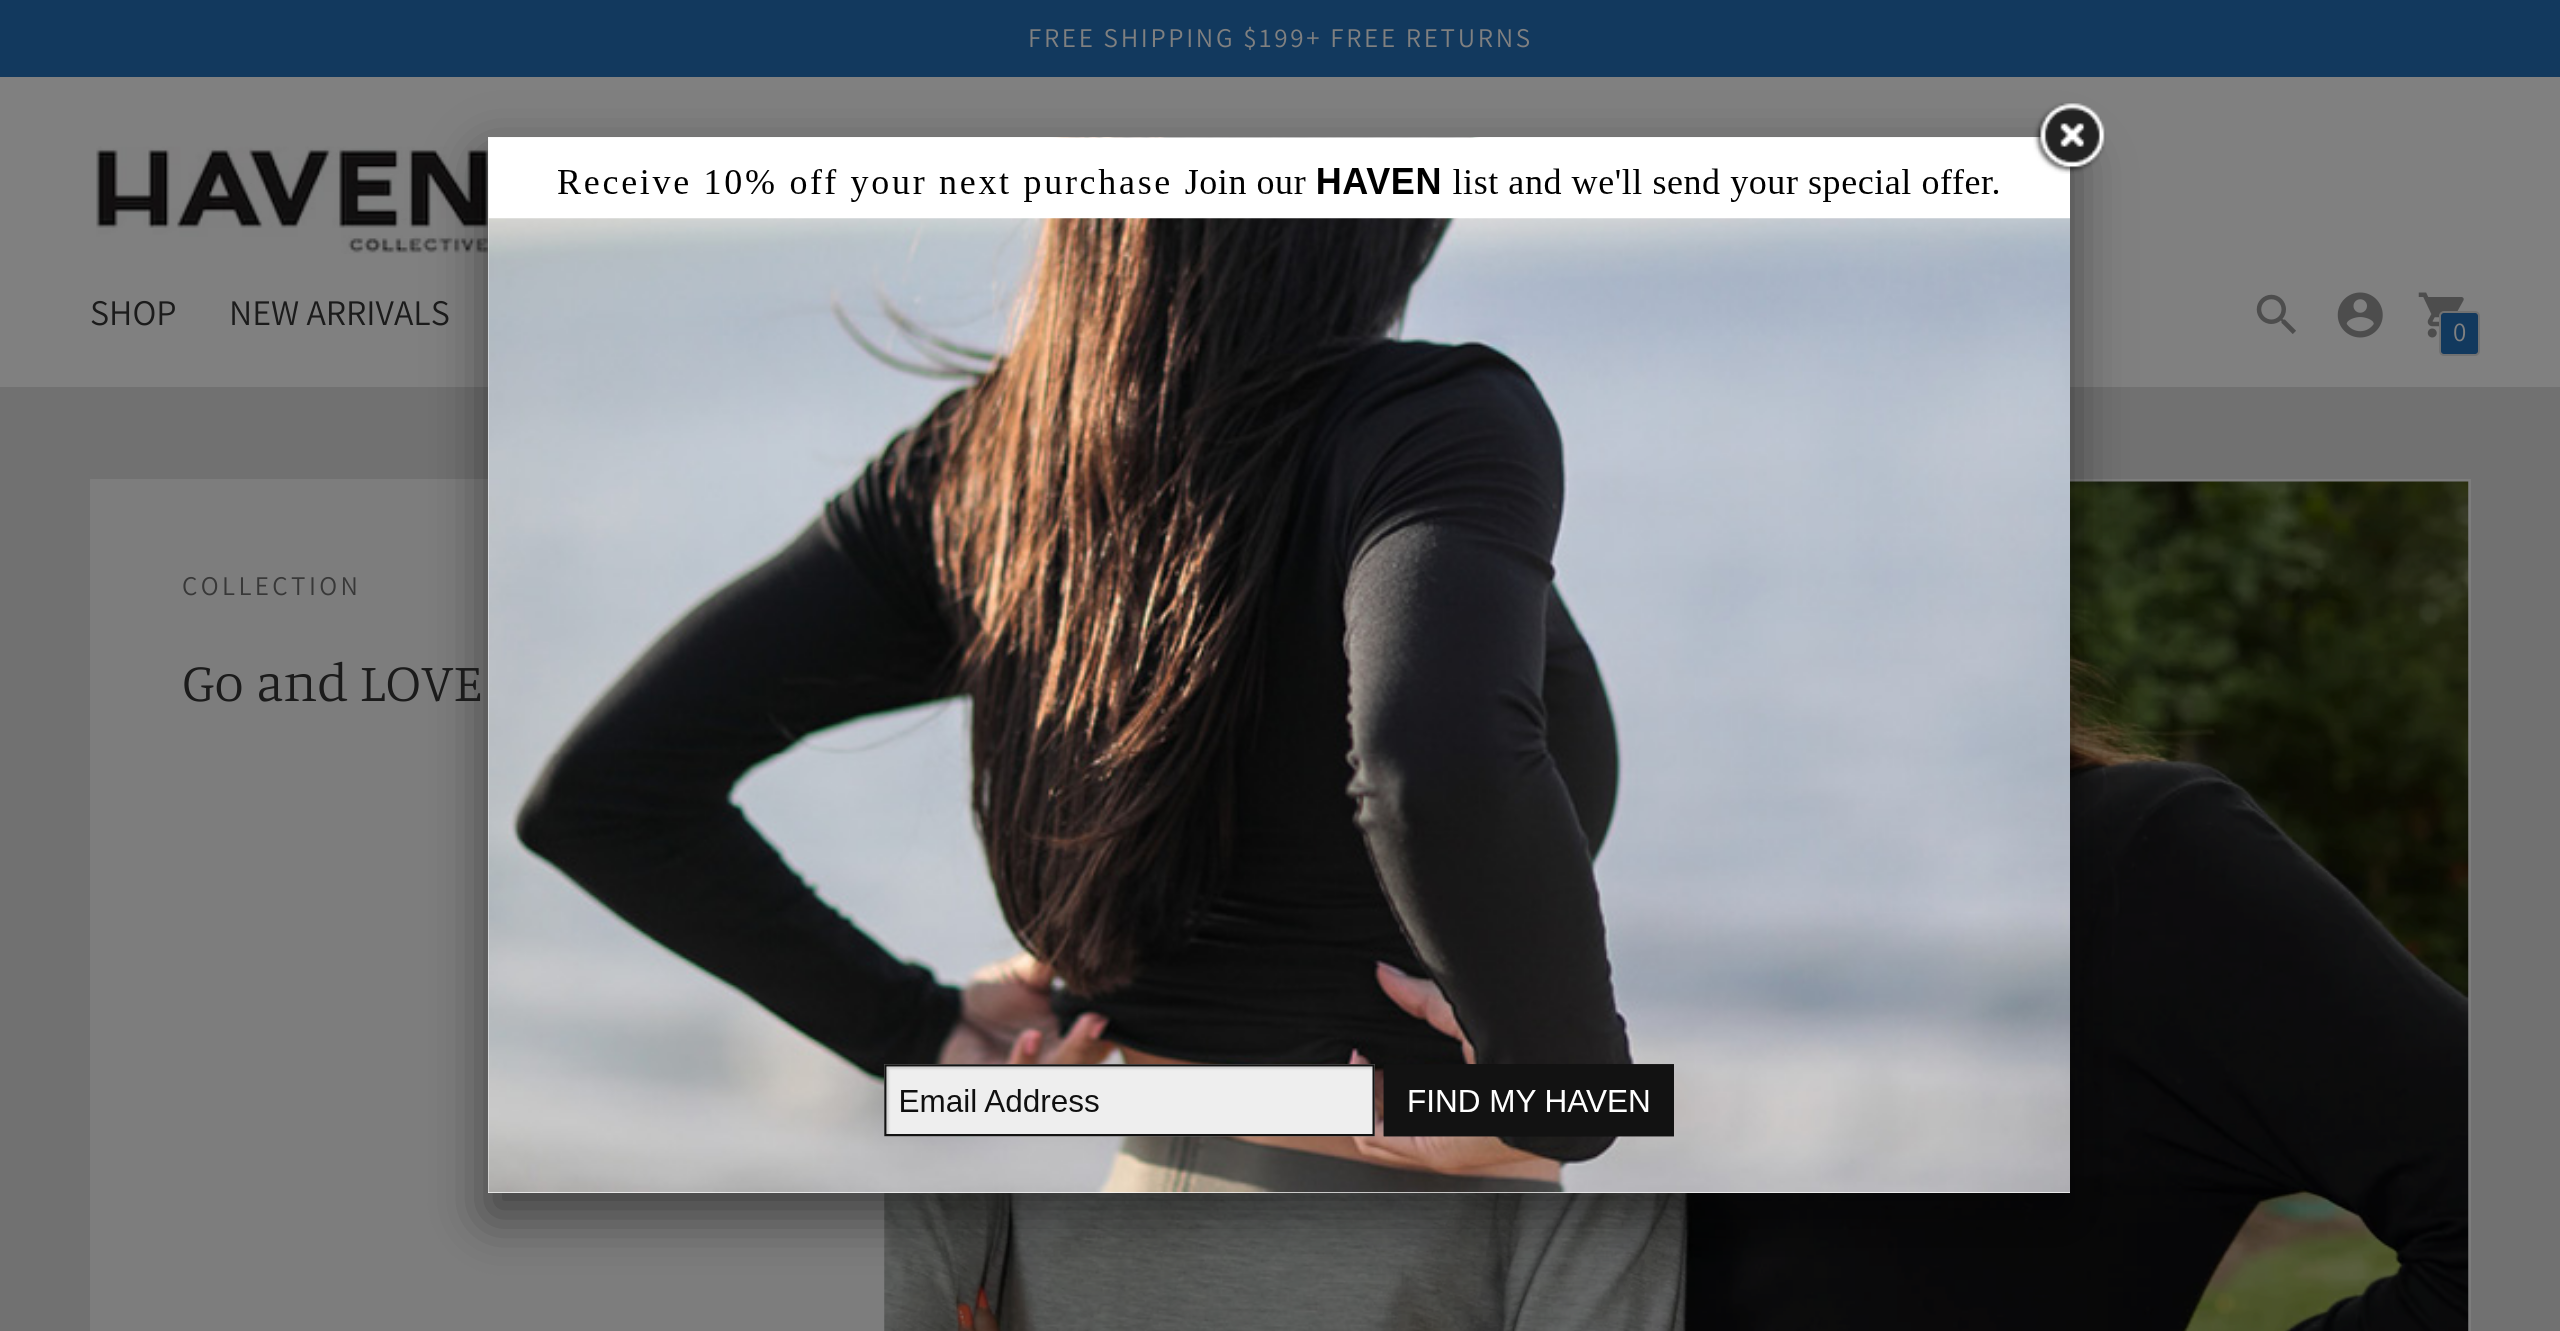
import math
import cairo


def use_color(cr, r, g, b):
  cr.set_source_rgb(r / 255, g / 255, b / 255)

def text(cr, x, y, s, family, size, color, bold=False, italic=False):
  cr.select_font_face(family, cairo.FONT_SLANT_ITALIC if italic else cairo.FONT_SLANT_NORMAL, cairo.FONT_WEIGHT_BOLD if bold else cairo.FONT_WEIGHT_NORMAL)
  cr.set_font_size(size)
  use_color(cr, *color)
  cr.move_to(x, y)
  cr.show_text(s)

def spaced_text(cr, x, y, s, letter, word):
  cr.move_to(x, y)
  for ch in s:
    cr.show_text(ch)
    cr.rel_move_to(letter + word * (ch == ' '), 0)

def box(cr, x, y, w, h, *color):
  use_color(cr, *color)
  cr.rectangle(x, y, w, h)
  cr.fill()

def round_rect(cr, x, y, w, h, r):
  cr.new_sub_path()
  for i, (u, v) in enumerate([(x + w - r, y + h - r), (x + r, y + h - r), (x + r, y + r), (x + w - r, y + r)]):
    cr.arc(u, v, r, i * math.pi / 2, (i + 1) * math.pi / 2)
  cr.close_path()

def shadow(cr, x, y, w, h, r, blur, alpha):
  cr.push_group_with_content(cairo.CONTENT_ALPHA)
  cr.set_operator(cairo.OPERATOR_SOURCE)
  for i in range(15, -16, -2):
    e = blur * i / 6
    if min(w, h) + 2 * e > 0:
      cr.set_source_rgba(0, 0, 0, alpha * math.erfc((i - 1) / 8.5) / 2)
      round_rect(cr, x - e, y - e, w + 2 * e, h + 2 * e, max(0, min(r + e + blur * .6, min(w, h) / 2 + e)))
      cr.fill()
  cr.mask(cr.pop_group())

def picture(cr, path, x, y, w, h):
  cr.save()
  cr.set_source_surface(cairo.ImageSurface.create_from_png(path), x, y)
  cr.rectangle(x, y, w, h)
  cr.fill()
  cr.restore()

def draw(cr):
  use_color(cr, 113, 113, 113)
  cr.paint()
  box(cr, 0, 0, 2560, 77, 18, 57, 94)
  box(cr, 0, 77, 2560, 310, 128, 128, 128)
  picture(cr, "img_01.png", 96, 146, 392, 108)
  picture(cr, "img_02.png", 2256, 294, 40, 40)
  picture(cr, "img_03.png", 2337, 292, 46, 46)
  picture(cr, "img_04.png", 2418, 292, 46, 46)
  use_color(cr, 18, 57, 94)
  round_rect(cr, 2440, 312, 39, 43, 4)
  cr.fill_preserve()
  use_color(cr, 113, 113, 113)
  cr.stroke()
  box(cr, 90, 479, 2381, 852, 125, 125, 125)
  picture(cr, "img_05.png", 884, 481, 1585, 850)
  use_color(cr, 0, 0, 0)
  shadow(cr, 488, 160, 1582, 1055, 0, 28, 0.5)
  box(cr, 488, 137, 1582, 1056, 249, 249, 249)
  picture(cr, "img_07.png", 488, 137, 1582, 1056)
  picture(cr, "img_06.png", 2033, 102, 73, 72)
  cr.select_font_face("Assistant")
  cr.set_font_size(27)
  use_color(cr, 128, 128, 128)
  spaced_text(cr, 1028, 47, "FREE SHIPPING $199+ FREE RETURNS", 2.7, 0)
  text(cr, 90, 325, "SHOP", "Assistant", 36, (27, 27, 27))
  text(cr, 229, 325, "NEW ARRIVALS", "Assistant", 36, (27, 27, 27))
  text(cr, 2453, 341, "0", "Assistant", 27, (128, 128, 128))
  use_color(cr, 56, 56, 56)
  spaced_text(cr, 182, 595, "COLLECTION", 3.4, 0)
  text(cr, 182, 701, "Go and LOVE", "Manuale Light", 54, (27, 27, 27))


surface = cairo.ImageSurface(cairo.FORMAT_RGB24, 2560, 1331)
cr = cairo.Context(surface)
options = cairo.FontOptions()
options.set_hint_metrics(cairo.HINT_METRICS_OFF)
options.set_hint_style(cairo.HINT_STYLE_NONE)
cr.set_font_options(options)
cr.set_miter_limit(4)
draw(cr)
surface.write_to_png("out.png")
